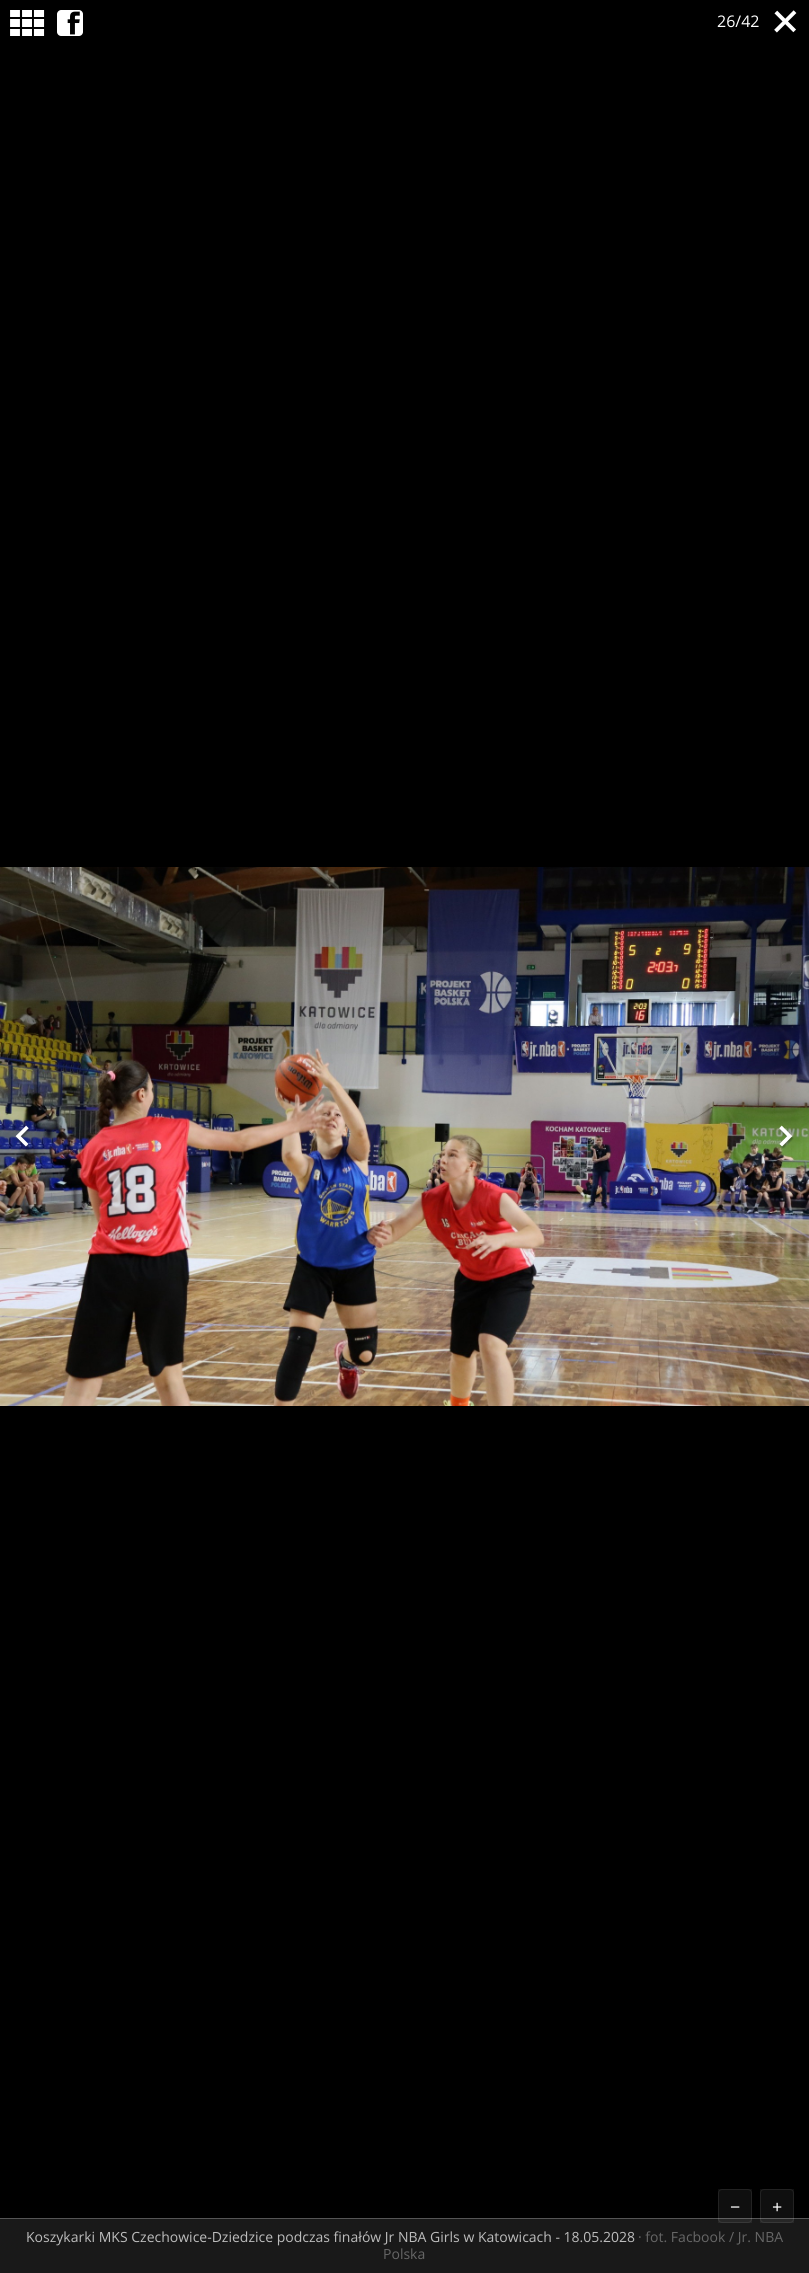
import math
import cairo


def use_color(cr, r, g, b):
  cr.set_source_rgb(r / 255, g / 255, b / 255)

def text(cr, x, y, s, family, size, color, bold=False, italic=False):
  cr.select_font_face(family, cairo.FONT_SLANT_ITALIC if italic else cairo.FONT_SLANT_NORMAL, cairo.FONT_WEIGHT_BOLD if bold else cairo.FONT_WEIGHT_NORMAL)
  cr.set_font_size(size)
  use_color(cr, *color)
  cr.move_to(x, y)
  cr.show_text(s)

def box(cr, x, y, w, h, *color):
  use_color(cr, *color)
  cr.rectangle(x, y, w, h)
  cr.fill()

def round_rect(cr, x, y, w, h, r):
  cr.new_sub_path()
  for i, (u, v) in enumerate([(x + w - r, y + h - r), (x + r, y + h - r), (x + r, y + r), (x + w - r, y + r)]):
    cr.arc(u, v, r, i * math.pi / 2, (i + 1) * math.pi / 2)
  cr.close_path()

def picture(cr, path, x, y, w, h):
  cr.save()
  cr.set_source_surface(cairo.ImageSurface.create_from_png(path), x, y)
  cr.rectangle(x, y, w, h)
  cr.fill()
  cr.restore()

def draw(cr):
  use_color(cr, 0, 0, 0)
  cr.paint()
  picture(cr, "img_01.png", 774, 10, 23, 23)
  picture(cr, "img_02.png", 0, 867, 809, 539)
  picture(cr, "img_03.png", 15, 1125, 15, 24)
  picture(cr, "img_04.png", 779, 1125, 15, 24)
  picture(cr, "img_05.png", 10, 10, 35, 26)
  picture(cr, "img_06.png", 57, 10, 26, 26)
  box(cr, 0, 2219, 809, 54, 25, 25, 25)
  box(cr, 0, 2218, 809, 1, 85, 85, 85)
  cr.set_source_rgba(1, 1, 1, 0.06)
  cr.rectangle(718, 2189, 34, 34)
  cr.fill()
  round_rect(cr, 718.5, 2189.5, 33, 33, 3.5)
  cr.set_source_rgba(1, 1, 1, 0.08)
  cr.set_line_width(1)
  cr.stroke()
  cr.set_source_rgba(1, 1, 1, 0.06)
  cr.rectangle(760, 2189, 34, 34)
  cr.fill()
  round_rect(cr, 760.5, 2189.5, 33, 33, 3.5)
  cr.set_source_rgba(1, 1, 1, 0.08)
  cr.stroke()
  text(cr, 717, 27, "26/42", "Open Sans", 16, (255, 255, 255))
  text(cr, 730, 2213, "−", "Liberation Serif", 18, (255, 255, 255), bold=True)
  text(cr, 772, 2213, "+", "Liberation Serif", 18, (255, 255, 255), bold=True)
  text(cr, 26, 2242, "Koszykarki MKS Czechowice-Dziedzice podczas finałów Jr NBA Girls w Katowicach - 18.05.2028", "Open Sans", 14, (188, 188, 188))
  text(cr, 638, 2242, "· fot. Facbook / Jr. NBA", "Open Sans", 14, (102, 102, 102))
  text(cr, 383, 2259, "Polska", "Open Sans", 14, (102, 102, 102))


surface = cairo.ImageSurface(cairo.FORMAT_RGB24, 809, 2273)
cr = cairo.Context(surface)
options = cairo.FontOptions()
options.set_hint_metrics(cairo.HINT_METRICS_OFF)
options.set_hint_style(cairo.HINT_STYLE_NONE)
cr.set_font_options(options)
cr.set_miter_limit(4)
draw(cr)
surface.write_to_png("out.png")
